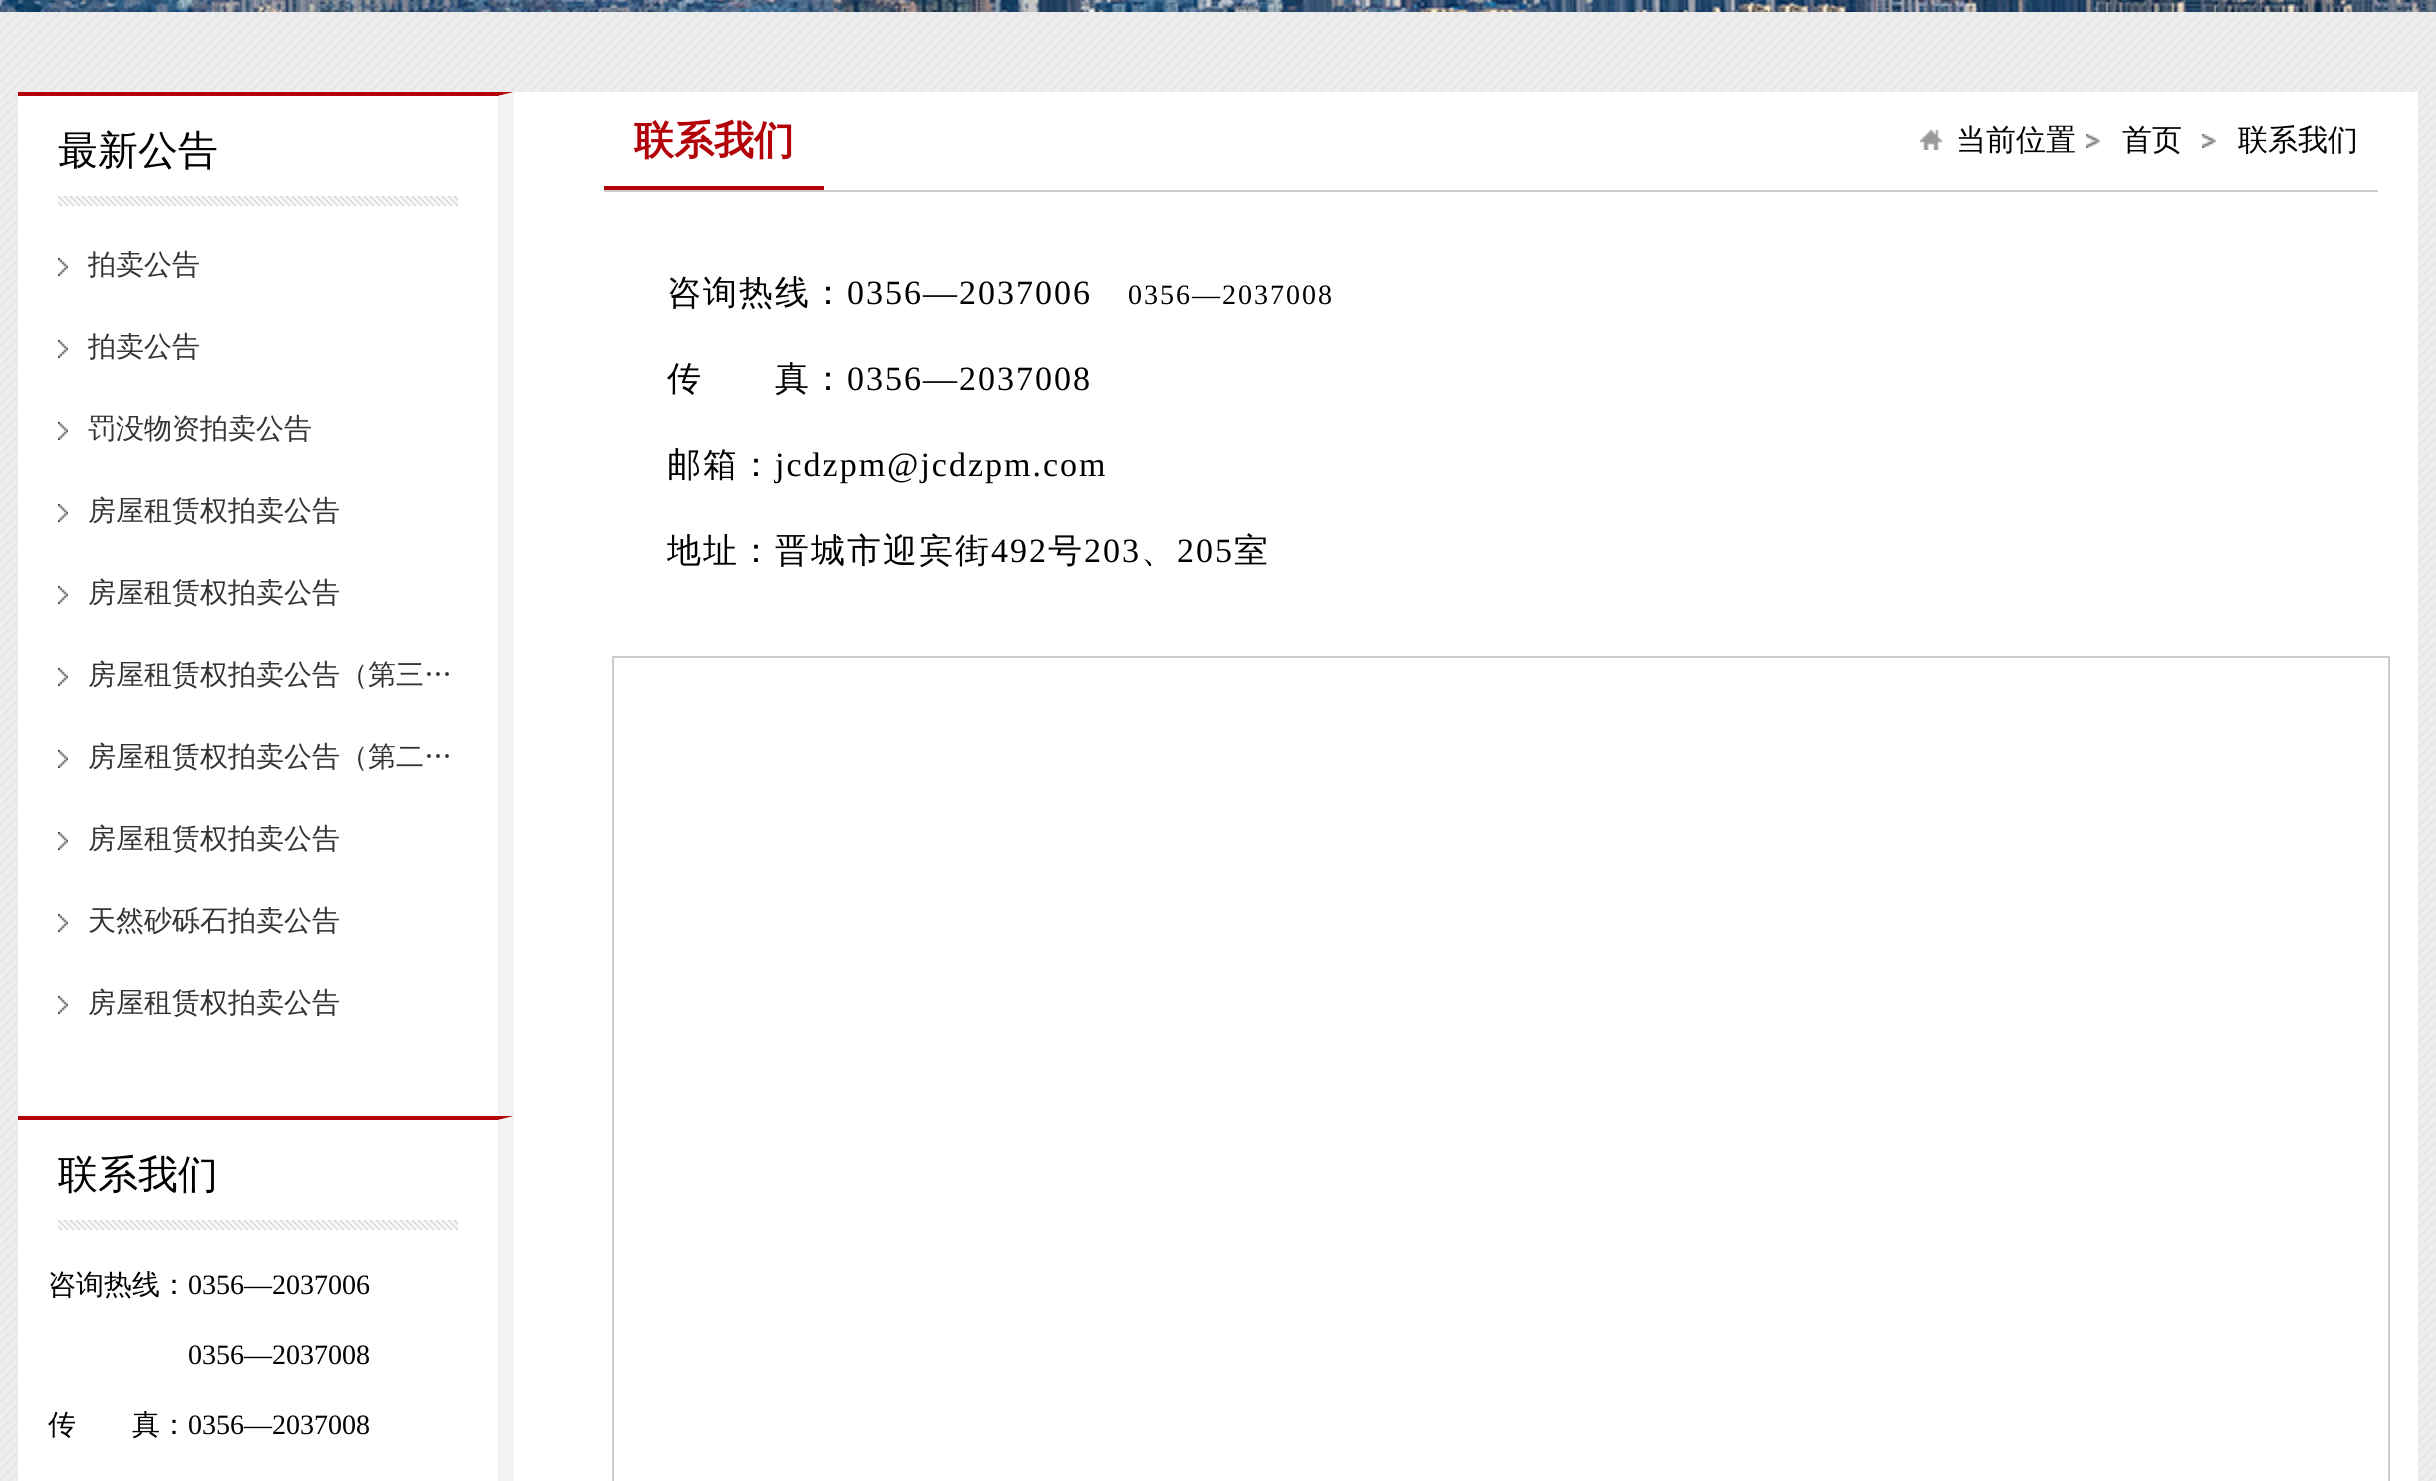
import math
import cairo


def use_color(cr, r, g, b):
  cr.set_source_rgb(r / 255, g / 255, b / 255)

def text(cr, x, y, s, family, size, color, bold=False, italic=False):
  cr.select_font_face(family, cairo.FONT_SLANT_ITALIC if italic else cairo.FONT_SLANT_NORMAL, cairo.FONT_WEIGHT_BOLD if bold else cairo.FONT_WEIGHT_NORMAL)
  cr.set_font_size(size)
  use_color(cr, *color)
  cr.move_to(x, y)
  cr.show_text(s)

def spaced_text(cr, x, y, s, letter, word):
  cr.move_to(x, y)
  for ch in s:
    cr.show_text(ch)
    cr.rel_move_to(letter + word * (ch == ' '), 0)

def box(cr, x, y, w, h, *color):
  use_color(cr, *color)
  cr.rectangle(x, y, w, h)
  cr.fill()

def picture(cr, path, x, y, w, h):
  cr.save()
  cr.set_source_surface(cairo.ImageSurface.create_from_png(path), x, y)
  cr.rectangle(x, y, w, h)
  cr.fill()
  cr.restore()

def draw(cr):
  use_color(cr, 255, 255, 255)
  cr.paint()
  picture(cr, "img_01.png", 0, 0, 2436, 12)
  picture(cr, "img_02.png", 0, 12, 2436, 1469)
  box(cr, 18, 92, 2400, 1389, 255, 255, 255)
  use_color(cr, 179, 1, 8)
  cr.new_path()
  cr.move_to(18, 92)
  cr.line_to(514, 92)
  cr.line_to(498, 96)
  cr.line_to(18, 96)
  cr.close_path()
  cr.fill()
  use_color(cr, 243, 243, 243)
  cr.new_path()
  cr.move_to(514, 92)
  cr.line_to(514, 1116)
  cr.line_to(498, 1116)
  cr.line_to(498, 96)
  cr.close_path()
  cr.fill()
  picture(cr, "img_03.png", 58, 196, 400, 10)
  picture(cr, "img_04.png", 58, 258, 10, 18)
  picture(cr, "img_04.png", 58, 340, 10, 18)
  picture(cr, "img_04.png", 58, 422, 10, 18)
  picture(cr, "img_04.png", 58, 504, 10, 18)
  picture(cr, "img_04.png", 58, 586, 10, 18)
  picture(cr, "img_04.png", 58, 668, 10, 18)
  picture(cr, "img_04.png", 58, 750, 10, 18)
  picture(cr, "img_04.png", 58, 832, 10, 18)
  picture(cr, "img_04.png", 58, 914, 10, 18)
  picture(cr, "img_04.png", 58, 996, 10, 18)
  use_color(cr, 179, 1, 8)
  cr.new_path()
  cr.move_to(18, 1116)
  cr.line_to(514, 1116)
  cr.line_to(498, 1120)
  cr.line_to(18, 1120)
  cr.close_path()
  cr.fill()
  use_color(cr, 243, 243, 243)
  cr.new_path()
  cr.move_to(514, 1116)
  cr.line_to(514, 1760)
  cr.line_to(498, 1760)
  cr.line_to(498, 1120)
  cr.close_path()
  cr.fill()
  picture(cr, "img_03.png", 58, 1220, 400, 10)
  box(cr, 604, 190, 1774, 2, 204, 204, 204)
  box(cr, 604, 186, 220, 4, 179, 1, 8)
  picture(cr, "img_05.png", 1920, 130, 22, 20)
  picture(cr, "img_06.png", 2086, 134, 14, 14)
  picture(cr, "img_06.png", 2202, 134, 14, 14)
  cr.rectangle(613, 657, 1776, 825)
  use_color(cr, 204, 204, 204)
  cr.stroke()
  text(cr, 58, 164, "最新公告", "WenQuanYi Zen Hei Medium", 40, (0, 0, 0))
  text(cr, 88, 274, "拍卖公告", "WenQuanYi Zen Hei Medium", 28, (51, 51, 51))
  text(cr, 88, 356, "拍卖公告", "WenQuanYi Zen Hei Medium", 28, (51, 51, 51))
  text(cr, 88, 438, "罚没物资拍卖公告", "WenQuanYi Zen Hei Medium", 28, (51, 51, 51))
  text(cr, 88, 520, "房屋租赁权拍卖公告", "WenQuanYi Zen Hei Medium", 28, (51, 51, 51))
  text(cr, 88, 602, "房屋租赁权拍卖公告", "WenQuanYi Zen Hei Medium", 28, (51, 51, 51))
  text(cr, 88, 684, "房屋租赁权拍卖公告（第三…", "WenQuanYi Zen Hei Medium", 28, (51, 51, 51))
  text(cr, 88, 766, "房屋租赁权拍卖公告（第二…", "WenQuanYi Zen Hei Medium", 28, (51, 51, 51))
  text(cr, 88, 848, "房屋租赁权拍卖公告", "WenQuanYi Zen Hei Medium", 28, (51, 51, 51))
  text(cr, 88, 930, "天然砂砾石拍卖公告", "WenQuanYi Zen Hei Medium", 28, (51, 51, 51))
  text(cr, 88, 1012, "房屋租赁权拍卖公告", "WenQuanYi Zen Hei Medium", 28, (51, 51, 51))
  text(cr, 58, 1188, "联系我们", "WenQuanYi Zen Hei Medium", 40, (0, 0, 0))
  text(cr, 48, 1294, "咨询热线：", "WenQuanYi Zen Hei Medium", 28, (0, 0, 0))
  text(cr, 188, 1294, "0356—2037006", "Liberation Serif", 28, (0, 0, 0))
  text(cr, 188, 1364, "0356—2037008", "Liberation Serif", 28, (0, 0, 0))
  text(cr, 48, 1434, "传　　真：", "WenQuanYi Zen Hei Medium", 28, (0, 0, 0))
  text(cr, 188, 1434, "0356—2037008", "Liberation Serif", 28, (0, 0, 0))
  text(cr, 634, 154, "联系我们", "WenQuanYi Zen Hei", 40, (179, 1, 8), bold=True)
  text(cr, 1956, 150, "当前位置", "WenQuanYi Zen Hei Medium", 30, (0, 0, 0))
  text(cr, 2122, 150, "首页", "WenQuanYi Zen Hei Medium", 30, (0, 0, 0))
  text(cr, 2238, 150, "联系我们", "WenQuanYi Zen Hei Medium", 30, (0, 0, 0))
  cr.set_font_size(34)
  spaced_text(cr, 667, 304, "咨询热线：", 2, 0)
  cr.select_font_face("Liberation Serif")
  spaced_text(cr, 847, 304, "0356—2037006", 2, 0)
  cr.set_font_size(28)
  spaced_text(cr, 1128, 304, "0356—2037008", 2, 0)
  cr.select_font_face("WenQuanYi Zen Hei Medium")
  cr.set_font_size(34)
  spaced_text(cr, 667, 390, "传　　真：", 2, 0)
  cr.select_font_face("Liberation Serif")
  spaced_text(cr, 847, 390, "0356—2037008", 2, 0)
  cr.select_font_face("WenQuanYi Zen Hei Medium")
  spaced_text(cr, 667, 476, "邮箱：", 2, 0)
  cr.select_font_face("Liberation Serif")
  spaced_text(cr, 775, 476, "jcdzpm@jcdzpm.com", 2, 0)
  cr.select_font_face("WenQuanYi Zen Hei Medium")
  spaced_text(cr, 667, 562, "地址：晋城市迎宾街", 2, 0)
  cr.select_font_face("Liberation Serif")
  spaced_text(cr, 991, 562, "492", 2, 0)
  cr.select_font_face("WenQuanYi Zen Hei Medium")
  spaced_text(cr, 1048, 562, "号", 2, 0)
  cr.select_font_face("Liberation Serif")
  spaced_text(cr, 1084, 562, "203", 2, 0)
  cr.select_font_face("WenQuanYi Zen Hei Medium")
  spaced_text(cr, 1141, 562, "、", 2, 0)
  cr.select_font_face("Liberation Serif")
  spaced_text(cr, 1177, 562, "205", 2, 0)
  cr.select_font_face("WenQuanYi Zen Hei Medium")
  spaced_text(cr, 1234, 562, "室", 2, 0)


surface = cairo.ImageSurface(cairo.FORMAT_RGB24, 2436, 1481)
cr = cairo.Context(surface)
options = cairo.FontOptions()
options.set_hint_metrics(cairo.HINT_METRICS_OFF)
options.set_hint_style(cairo.HINT_STYLE_NONE)
cr.set_font_options(options)
cr.set_miter_limit(4)
draw(cr)
surface.write_to_png("out.png")
